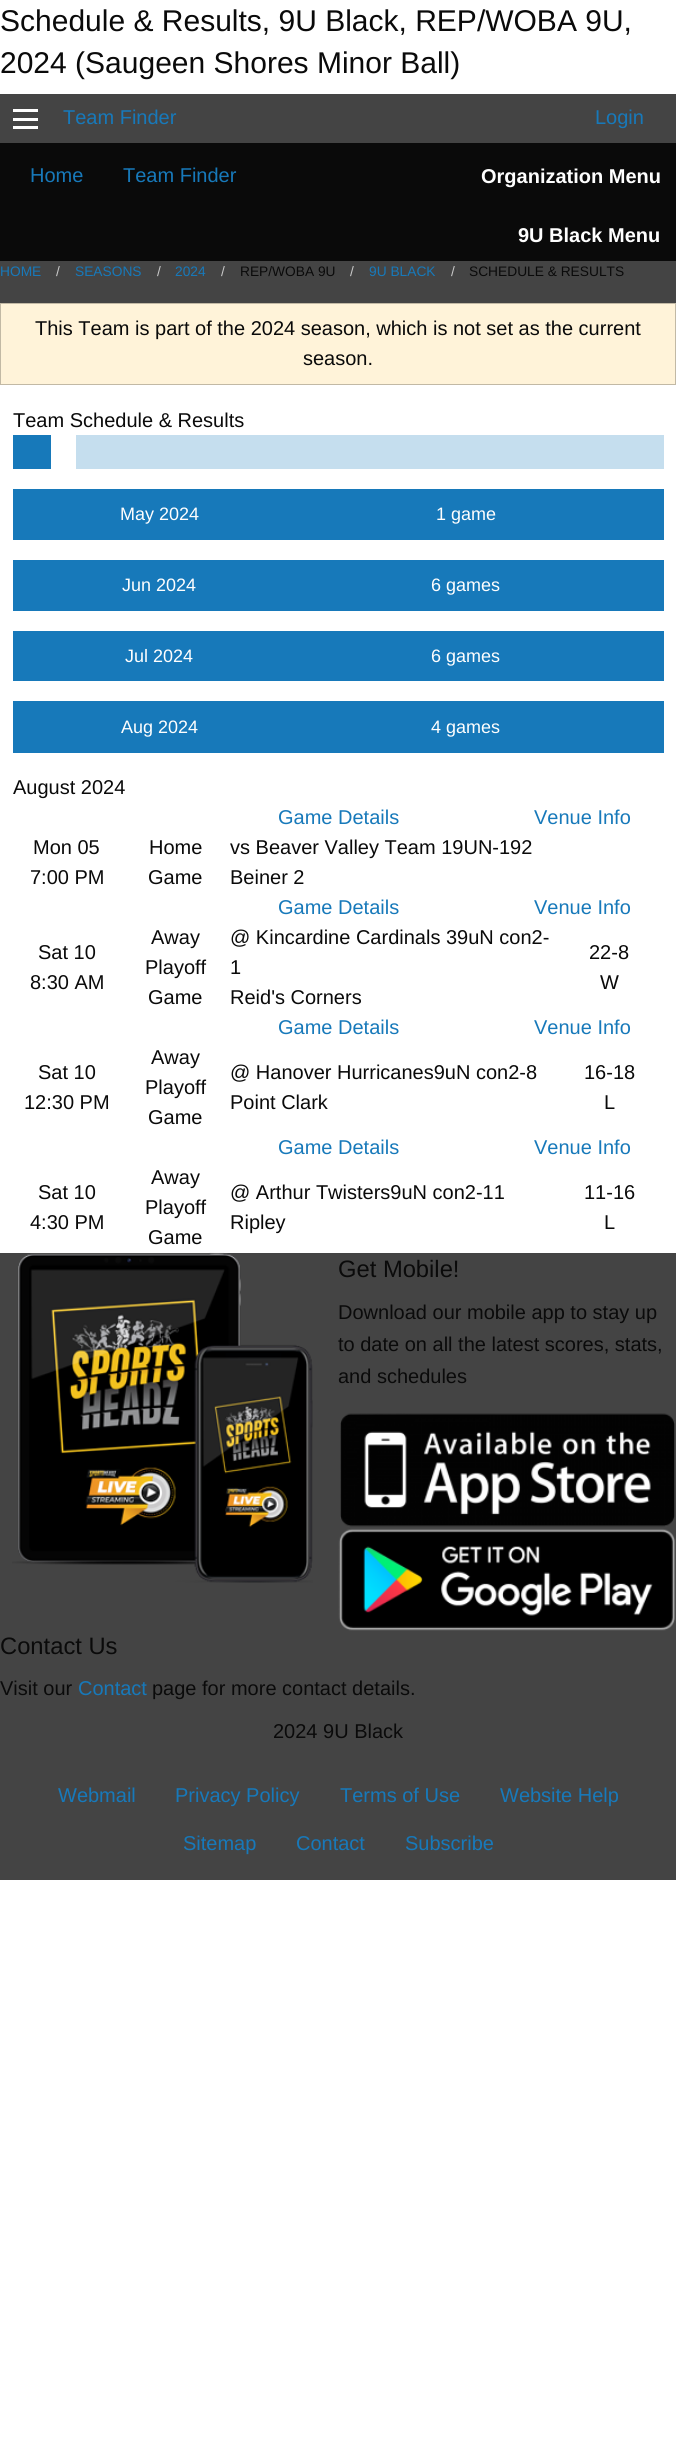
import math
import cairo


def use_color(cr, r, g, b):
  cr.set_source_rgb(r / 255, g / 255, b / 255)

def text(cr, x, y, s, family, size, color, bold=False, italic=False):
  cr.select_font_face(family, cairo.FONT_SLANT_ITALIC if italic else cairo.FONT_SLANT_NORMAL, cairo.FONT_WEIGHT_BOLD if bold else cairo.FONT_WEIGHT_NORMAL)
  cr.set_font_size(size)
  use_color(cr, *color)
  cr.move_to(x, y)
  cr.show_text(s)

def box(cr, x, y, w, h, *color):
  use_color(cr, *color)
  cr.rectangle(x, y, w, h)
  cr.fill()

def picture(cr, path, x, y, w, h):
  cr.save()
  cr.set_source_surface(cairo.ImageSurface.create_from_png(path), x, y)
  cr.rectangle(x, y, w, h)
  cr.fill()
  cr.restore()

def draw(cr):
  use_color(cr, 255, 255, 255)
  cr.paint()
  box(cr, 0, 94, 676, 1786, 68, 68, 68)
  box(cr, 13, 126, 25, 3, 254, 254, 254)
  box(cr, 13, 118, 25, 3, 254, 254, 254)
  box(cr, 13, 109, 25, 3, 254, 254, 254)
  box(cr, 0, 143, 676, 118, 10, 10, 10)
  box(cr, 0, 385, 676, 868, 255, 255, 255)
  use_color(cr, 255, 243, 217)
  cr.rectangle(0.5, 303.5, 675, 81)
  cr.fill_preserve()
  use_color(cr, 194, 185, 165)
  cr.set_line_width(1)
  cr.stroke()
  box(cr, 13, 435, 38, 34, 23, 121, 186)
  box(cr, 76, 435, 588, 34, 197, 222, 238)
  box(cr, 13, 489, 651, 51, 23, 121, 186)
  box(cr, 13, 560, 651, 51, 23, 121, 186)
  box(cr, 13, 631, 651, 50, 23, 121, 186)
  box(cr, 13, 701, 651, 52, 23, 121, 186)
  picture(cr, "img_01.png", 12, 1252, 301, 331)
  picture(cr, "img_02.png", 340, 1413, 335, 114)
  picture(cr, "img_03.png", 338, 1528, 338, 103)
  text(cr, 0, 31, "Schedule & Results, 9U Black, REP/WOBA 9U,", "Liberation Sans", 30, (10, 10, 10))
  text(cr, 0, 73, "2024 (Saugeen Shores Minor Ball)", "Liberation Sans", 30, (10, 10, 10))
  text(cr, 63, 124, "Team Finder", "Liberation Sans", 20, (23, 121, 186))
  text(cr, 595, 124, "Login", "Liberation Sans", 20, (23, 121, 186))
  text(cr, 30, 182, "Home", "Liberation Sans", 20, (23, 121, 186))
  text(cr, 123, 182, "Team Finder", "Liberation Sans", 20, (23, 121, 186))
  text(cr, 481, 183, "Organization Menu", "Liberation Sans", 20, (254, 254, 254), bold=True)
  text(cr, 518, 242, "9U Black Menu", "Liberation Sans", 20, (254, 254, 254), bold=True)
  text(cr, 0, 276, "HOME", "Liberation Sans", 13.75, (23, 121, 186))
  text(cr, 56, 276, "/", "Liberation Sans", 13.75, (202, 202, 202))
  text(cr, 75, 276, "SEASONS", "Liberation Sans", 13.75, (23, 121, 186))
  text(cr, 157, 276, "/", "Liberation Sans", 13.75, (202, 202, 202))
  text(cr, 175, 276, "2024", "Liberation Sans", 13.75, (23, 121, 186))
  text(cr, 221, 276, "/", "Liberation Sans", 13.75, (202, 202, 202))
  text(cr, 240, 276, "REP/WOBA 9U", "Liberation Sans", 13.75, (10, 10, 10))
  text(cr, 350, 276, "/", "Liberation Sans", 13.75, (202, 202, 202))
  text(cr, 369, 276, "9U BLACK", "Liberation Sans", 13.75, (23, 121, 186))
  text(cr, 451, 276, "/", "Liberation Sans", 13.75, (202, 202, 202))
  text(cr, 469, 276, "SCHEDULE & RESULTS", "Liberation Sans", 13.75, (10, 10, 10))
  text(cr, 35, 335, "This Team is part of the 2024 season, which is not set as the current", "Liberation Sans", 20, (10, 10, 10))
  text(cr, 303, 365, "season.", "Liberation Sans", 20, (10, 10, 10))
  text(cr, 13, 427, "Team Schedule & Results", "Liberation Sans", 20, (10, 10, 10))
  text(cr, 120, 520, "May 2024", "Liberation Sans", 18, (254, 254, 254))
  text(cr, 436, 520, "1 game", "Liberation Sans", 18, (254, 254, 254))
  text(cr, 122, 591, "Jun 2024", "Liberation Sans", 18, (254, 254, 254))
  text(cr, 431, 591, "6 games", "Liberation Sans", 18, (254, 254, 254))
  text(cr, 125, 662, "Jul 2024", "Liberation Sans", 18, (254, 254, 254))
  text(cr, 431, 662, "6 games", "Liberation Sans", 18, (254, 254, 254))
  text(cr, 121, 733, "Aug 2024", "Liberation Sans", 18, (254, 254, 254))
  text(cr, 431, 733, "4 games", "Liberation Sans", 18, (254, 254, 254))
  text(cr, 13, 794, "August 2024", "Liberation Sans", 20, (10, 10, 10))
  text(cr, 278, 824, "Game Details", "Liberation Sans", 20, (23, 121, 186))
  text(cr, 534, 824, "Venue Info", "Liberation Sans", 20, (23, 121, 186))
  text(cr, 33, 854, "Mon 05", "Liberation Sans", 20, (10, 10, 10))
  text(cr, 30, 884, "7:00 PM", "Liberation Sans", 20, (10, 10, 10))
  text(cr, 149, 854, "Home", "Liberation Sans", 20, (10, 10, 10))
  text(cr, 148, 884, "Game", "Liberation Sans", 20, (10, 10, 10))
  text(cr, 230, 854, "vs Beaver Valley Team 19UN-192", "Liberation Sans", 20, (10, 10, 10))
  text(cr, 230, 884, "Beiner 2", "Liberation Sans", 20, (10, 10, 10))
  text(cr, 278, 914, "Game Details", "Liberation Sans", 20, (23, 121, 186))
  text(cr, 534, 914, "Venue Info", "Liberation Sans", 20, (23, 121, 186))
  text(cr, 38, 959, "Sat 10", "Liberation Sans", 20, (10, 10, 10))
  text(cr, 30, 989, "8:30 AM", "Liberation Sans", 20, (10, 10, 10))
  text(cr, 151, 944, "Away", "Liberation Sans", 20, (10, 10, 10))
  text(cr, 145, 974, "Playoff", "Liberation Sans", 20, (10, 10, 10))
  text(cr, 148, 1004, "Game", "Liberation Sans", 20, (10, 10, 10))
  text(cr, 230, 944, "@ Kincardine Cardinals 39uN con2-", "Liberation Sans", 20, (10, 10, 10))
  text(cr, 230, 974, "1", "Liberation Sans", 20, (10, 10, 10))
  text(cr, 230, 1004, "Reid's Corners", "Liberation Sans", 20, (10, 10, 10))
  text(cr, 589, 959, "22-8", "Liberation Sans", 20, (10, 10, 10))
  text(cr, 600, 989, "W", "Liberation Sans", 20, (10, 10, 10))
  text(cr, 278, 1034, "Game Details", "Liberation Sans", 20, (23, 121, 186))
  text(cr, 534, 1034, "Venue Info", "Liberation Sans", 20, (23, 121, 186))
  text(cr, 38, 1079, "Sat 10", "Liberation Sans", 20, (10, 10, 10))
  text(cr, 24, 1109, "12:30 PM", "Liberation Sans", 20, (10, 10, 10))
  text(cr, 151, 1064, "Away", "Liberation Sans", 20, (10, 10, 10))
  text(cr, 145, 1094, "Playoff", "Liberation Sans", 20, (10, 10, 10))
  text(cr, 148, 1124, "Game", "Liberation Sans", 20, (10, 10, 10))
  text(cr, 230, 1079, "@ Hanover Hurricanes9uN con2-8", "Liberation Sans", 20, (10, 10, 10))
  text(cr, 230, 1109, "Point Clark", "Liberation Sans", 20, (10, 10, 10))
  text(cr, 584, 1079, "16-18", "Liberation Sans", 20, (10, 10, 10))
  text(cr, 604, 1109, "L", "Liberation Sans", 20, (10, 10, 10))
  text(cr, 278, 1154, "Game Details", "Liberation Sans", 20, (23, 121, 186))
  text(cr, 534, 1154, "Venue Info", "Liberation Sans", 20, (23, 121, 186))
  text(cr, 38, 1199, "Sat 10", "Liberation Sans", 20, (10, 10, 10))
  text(cr, 30, 1229, "4:30 PM", "Liberation Sans", 20, (10, 10, 10))
  text(cr, 151, 1184, "Away", "Liberation Sans", 20, (10, 10, 10))
  text(cr, 145, 1214, "Playoff", "Liberation Sans", 20, (10, 10, 10))
  text(cr, 148, 1244, "Game", "Liberation Sans", 20, (10, 10, 10))
  text(cr, 230, 1199, "@ Arthur Twisters9uN con2-11", "Liberation Sans", 20, (10, 10, 10))
  text(cr, 230, 1229, "Ripley", "Liberation Sans", 20, (10, 10, 10))
  text(cr, 584, 1199, "11-16", "Liberation Sans", 20, (10, 10, 10))
  text(cr, 604, 1229, "L", "Liberation Sans", 20, (10, 10, 10))
  text(cr, 338, 1277, "Get Mobile!", "Liberation Sans", 23.75, (10, 10, 10))
  text(cr, 338, 1319, "Download our mobile app to stay up", "Liberation Sans", 20, (10, 10, 10))
  text(cr, 338, 1351, "to date on all the latest scores, stats,", "Liberation Sans", 20, (10, 10, 10))
  text(cr, 338, 1383, "and schedules", "Liberation Sans", 20, (10, 10, 10))
  text(cr, 0, 1654, "Contact Us", "Liberation Sans", 23.75, (10, 10, 10))
  text(cr, 0, 1695, "Visit our", "Liberation Sans", 20, (10, 10, 10))
  text(cr, 78, 1695, "Contact", "Liberation Sans", 20, (23, 121, 186))
  text(cr, 152, 1695, "page for more contact details.", "Liberation Sans", 20, (10, 10, 10))
  text(cr, 273, 1738, "2024 9U Black", "Liberation Sans", 20, (10, 10, 10))
  text(cr, 58, 1802, "Webmail", "Liberation Sans", 20, (23, 121, 186))
  text(cr, 175, 1802, "Privacy Policy", "Liberation Sans", 20, (23, 121, 186))
  text(cr, 340, 1802, "Terms of Use", "Liberation Sans", 20, (23, 121, 186))
  text(cr, 500, 1802, "Website Help", "Liberation Sans", 20, (23, 121, 186))
  text(cr, 183, 1850, "Sitemap", "Liberation Sans", 20, (23, 121, 186))
  text(cr, 296, 1850, "Contact", "Liberation Sans", 20, (23, 121, 186))
  text(cr, 405, 1850, "Subscribe", "Liberation Sans", 20, (23, 121, 186))


surface = cairo.ImageSurface(cairo.FORMAT_RGB24, 676, 2444)
cr = cairo.Context(surface)
options = cairo.FontOptions()
options.set_hint_metrics(cairo.HINT_METRICS_OFF)
options.set_hint_style(cairo.HINT_STYLE_NONE)
cr.set_font_options(options)
cr.set_miter_limit(4)
draw(cr)
surface.write_to_png("out.png")
